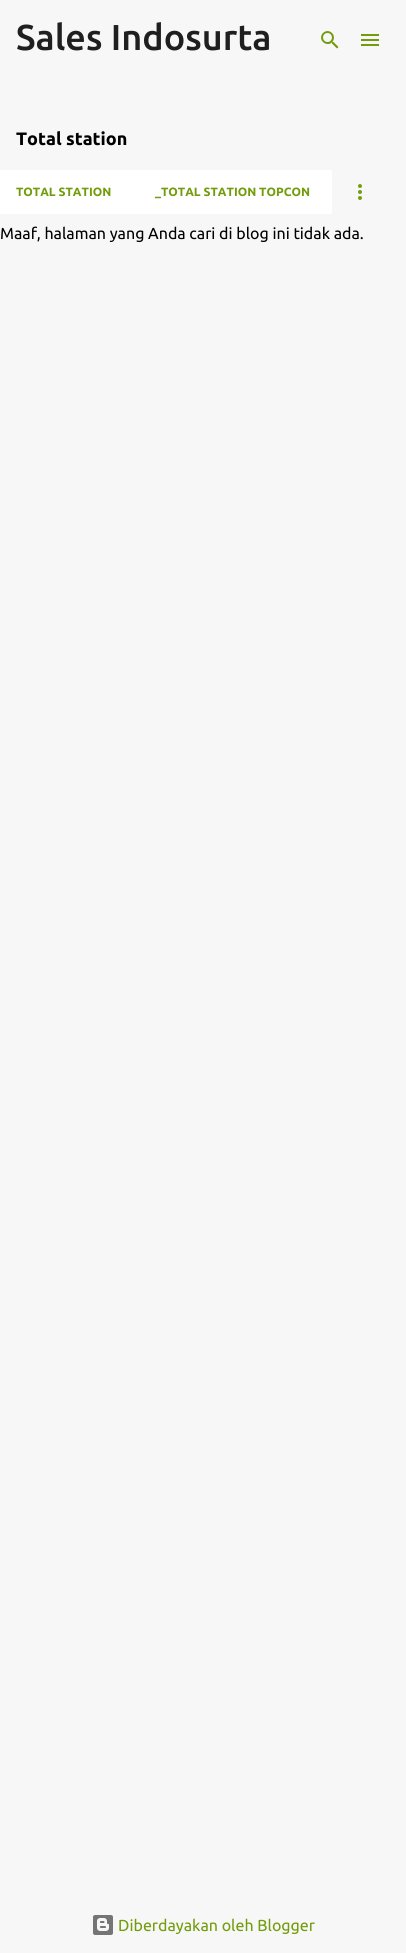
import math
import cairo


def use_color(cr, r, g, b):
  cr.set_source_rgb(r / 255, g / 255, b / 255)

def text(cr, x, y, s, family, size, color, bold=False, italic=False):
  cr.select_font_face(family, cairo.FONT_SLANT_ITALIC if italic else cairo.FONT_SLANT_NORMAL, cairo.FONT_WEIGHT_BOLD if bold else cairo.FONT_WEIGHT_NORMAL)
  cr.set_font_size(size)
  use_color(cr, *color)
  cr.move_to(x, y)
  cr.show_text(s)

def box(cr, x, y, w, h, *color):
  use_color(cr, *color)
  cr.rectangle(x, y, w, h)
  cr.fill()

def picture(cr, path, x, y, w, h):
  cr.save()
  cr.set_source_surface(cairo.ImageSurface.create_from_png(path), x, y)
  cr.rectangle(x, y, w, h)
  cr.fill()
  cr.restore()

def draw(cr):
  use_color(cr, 247, 247, 247)
  cr.paint()
  picture(cr, "img_01.png", 321, 31, 18, 18)
  picture(cr, "img_02.png", 361, 34, 18, 12)
  box(cr, 0, 170, 332, 44, 255, 255, 255)
  picture(cr, "img_03.png", 358, 184, 4, 16)
  picture(cr, "img_04.png", 93, 1915, 20, 20)
  text(cr, 16, 50, "Sales Indosurta", "Ubuntu Medium", 36, (31, 31, 31))
  text(cr, 16, 145, "Total station", "Ubuntu", 18, (0, 0, 0), bold=True)
  text(cr, 16, 196, "TOTAL STATION", "Ubuntu", 12, (114, 156, 11), bold=True)
  text(cr, 155, 196, "_TOTAL STATION TOPCON", "Ubuntu", 12, (114, 156, 11), bold=True)
  text(cr, 0, 239, "Maaf, halaman yang Anda cari di blog ini tidak ada.", "Ubuntu", 16, (0, 0, 0))
  text(cr, 118, 1931, "Diberdayakan oleh Blogger", "Ubuntu", 16, (114, 156, 11))


surface = cairo.ImageSurface(cairo.FORMAT_RGB24, 406, 1953)
cr = cairo.Context(surface)
options = cairo.FontOptions()
options.set_hint_metrics(cairo.HINT_METRICS_OFF)
options.set_hint_style(cairo.HINT_STYLE_NONE)
cr.set_font_options(options)
cr.set_miter_limit(4)
draw(cr)
surface.write_to_png("out.png")
